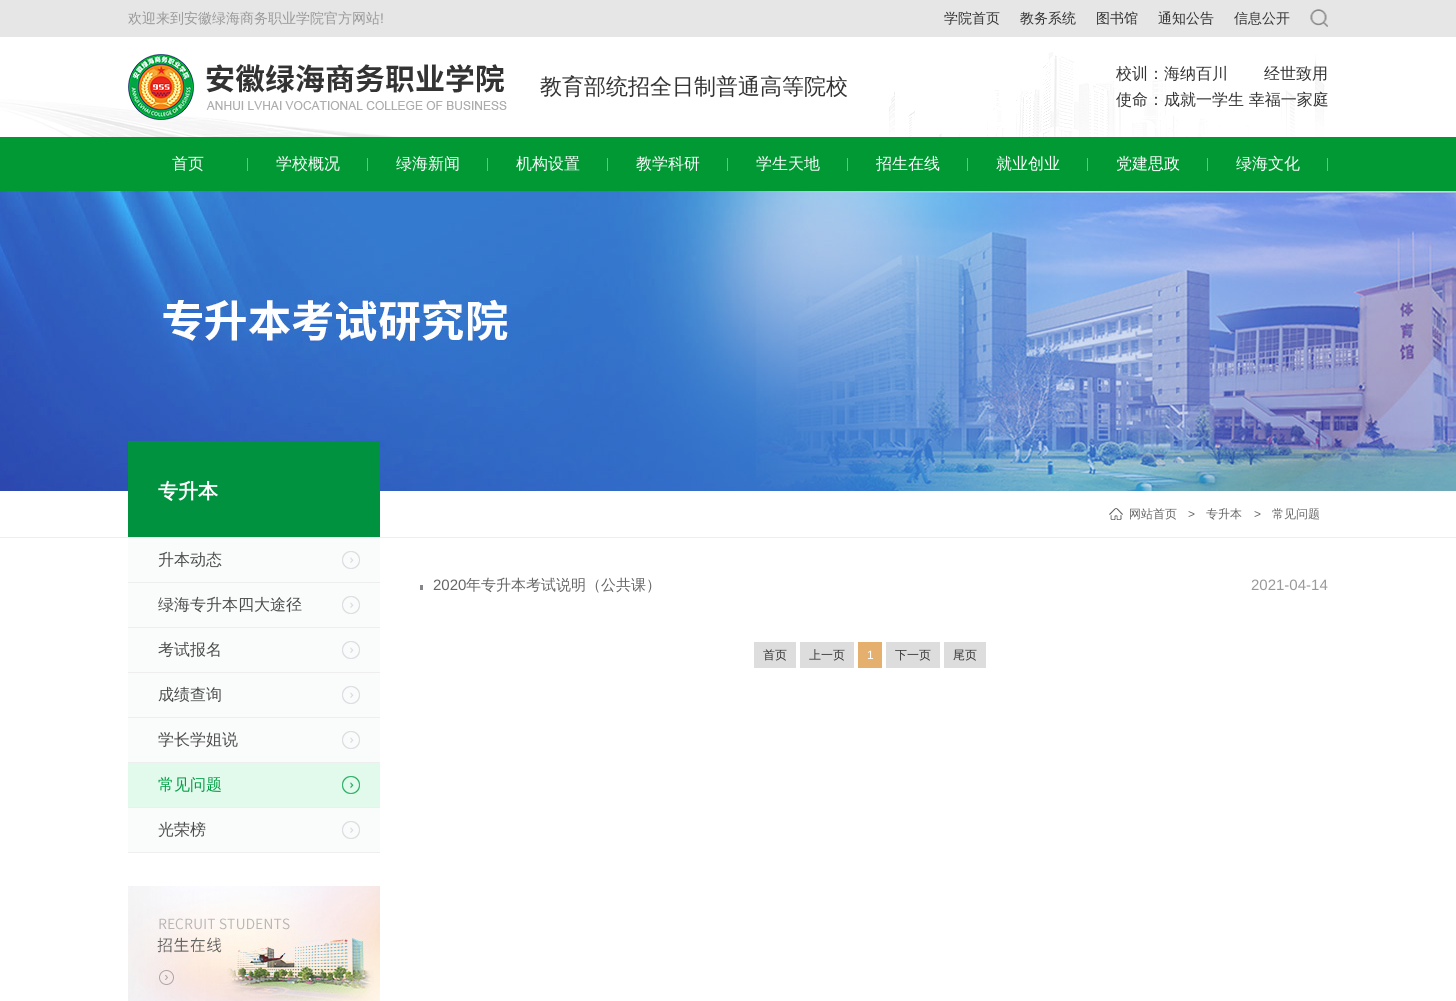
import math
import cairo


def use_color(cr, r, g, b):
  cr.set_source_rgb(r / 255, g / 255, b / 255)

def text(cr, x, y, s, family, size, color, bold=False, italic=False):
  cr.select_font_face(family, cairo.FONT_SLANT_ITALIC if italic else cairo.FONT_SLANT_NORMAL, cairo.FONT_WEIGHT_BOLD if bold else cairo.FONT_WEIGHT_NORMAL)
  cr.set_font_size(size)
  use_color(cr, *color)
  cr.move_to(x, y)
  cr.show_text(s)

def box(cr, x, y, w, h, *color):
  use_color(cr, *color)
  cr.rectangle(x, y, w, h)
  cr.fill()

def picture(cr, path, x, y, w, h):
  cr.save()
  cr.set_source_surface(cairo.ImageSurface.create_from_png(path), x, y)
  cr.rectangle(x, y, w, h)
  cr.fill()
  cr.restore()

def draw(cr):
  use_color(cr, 230, 230, 230)
  cr.paint()
  picture(cr, "img_01.png", 1310, 9, 18, 18)
  box(cr, 0, 37, 1456, 100, 255, 255, 255)
  picture(cr, "img_02.png", 0, 52, 1325, 85)
  picture(cr, "img_03.png", 128, 54, 379, 66)
  box(cr, 0, 137, 1456, 54, 0, 153, 51)
  box(cr, 247, 158, 1, 13, 102, 194, 133)
  box(cr, 367, 158, 1, 13, 102, 194, 133)
  box(cr, 487, 158, 1, 13, 102, 194, 133)
  box(cr, 607, 158, 1, 13, 102, 194, 133)
  box(cr, 727, 158, 1, 13, 102, 194, 133)
  box(cr, 847, 158, 1, 13, 102, 194, 133)
  box(cr, 967, 158, 1, 13, 102, 194, 133)
  box(cr, 1087, 158, 1, 13, 102, 194, 133)
  box(cr, 1207, 158, 1, 13, 102, 194, 133)
  box(cr, 1327, 158, 1, 13, 102, 194, 133)
  picture(cr, "img_04.png", 0, 191, 1456, 300)
  box(cr, 0, 491, 1456, 510, 255, 255, 255)
  box(cr, 128, 441, 252, 96, 0, 146, 63)
  box(cr, 128, 538, 252, 44, 250, 252, 251)
  picture(cr, "img_05.png", 342, 551, 18, 18)
  box(cr, 128, 582, 252, 1, 238, 238, 238)
  box(cr, 128, 583, 252, 44, 250, 252, 251)
  picture(cr, "img_05.png", 342, 596, 18, 18)
  box(cr, 128, 627, 252, 1, 238, 238, 238)
  box(cr, 128, 628, 252, 44, 250, 252, 251)
  picture(cr, "img_05.png", 342, 641, 18, 18)
  box(cr, 128, 672, 252, 1, 238, 238, 238)
  box(cr, 128, 673, 252, 44, 250, 252, 251)
  picture(cr, "img_05.png", 342, 686, 18, 18)
  box(cr, 128, 717, 252, 1, 238, 238, 238)
  box(cr, 128, 718, 252, 44, 250, 252, 251)
  picture(cr, "img_05.png", 342, 731, 18, 18)
  box(cr, 128, 762, 252, 1, 238, 238, 238)
  box(cr, 128, 763, 252, 44, 225, 250, 236)
  picture(cr, "img_06.png", 342, 776, 18, 18)
  box(cr, 128, 807, 252, 1, 238, 238, 238)
  box(cr, 128, 808, 252, 44, 250, 252, 251)
  picture(cr, "img_05.png", 342, 821, 18, 18)
  box(cr, 128, 852, 252, 1, 238, 238, 238)
  picture(cr, "img_07.png", 128, 886, 252, 115)
  box(cr, 420, 585, 3, 5, 136, 132, 139)
  box(cr, 754, 642, 42, 26, 221, 221, 221)
  box(cr, 800, 642, 54, 26, 221, 221, 221)
  box(cr, 858, 642, 24, 26, 229, 176, 109)
  box(cr, 886, 642, 54, 26, 221, 221, 221)
  box(cr, 944, 642, 42, 26, 221, 221, 221)
  box(cr, 0, 537, 1456, 1, 238, 238, 238)
  picture(cr, "img_08.png", 1109, 508, 14, 12)
  text(cr, 128, 23, "欢迎来到安徽绿海商务职业学院官方网站", "WenQuanYi Zen Hei Medium", 14, (153, 153, 153))
  text(cr, 380, 23, "!", "Liberation Sans", 14, (153, 153, 153))
  text(cr, 944, 23, "学院首页", "WenQuanYi Zen Hei Medium", 14, (51, 51, 51))
  text(cr, 1020, 23, "教务系统", "WenQuanYi Zen Hei Medium", 14, (51, 51, 51))
  text(cr, 1096, 23, "图书馆", "WenQuanYi Zen Hei Medium", 14, (51, 51, 51))
  text(cr, 1158, 23, "通知公告", "WenQuanYi Zen Hei Medium", 14, (51, 51, 51))
  text(cr, 1234, 23, "信息公开", "WenQuanYi Zen Hei Medium", 14, (51, 51, 51))
  text(cr, 540, 94, "教育部统招全日制普通高等院校", "WenQuanYi Zen Hei Medium", 22, (51, 51, 51))
  text(cr, 1116, 79, "校训：海纳百川", "WenQuanYi Zen Hei Medium", 16, (51, 51, 51))
  text(cr, 1264, 79, "经世致用", "WenQuanYi Zen Hei Medium", 16, (51, 51, 51))
  text(cr, 1116, 105, "使命：成就一学生 幸福一家庭", "WenQuanYi Zen Hei Medium", 16, (51, 51, 51))
  text(cr, 172, 169, "首页", "WenQuanYi Zen Hei Medium", 16, (255, 255, 255))
  text(cr, 276, 169, "学校概况", "WenQuanYi Zen Hei Medium", 16, (255, 255, 255))
  text(cr, 396, 169, "绿海新闻", "WenQuanYi Zen Hei Medium", 16, (255, 255, 255))
  text(cr, 516, 169, "机构设置", "WenQuanYi Zen Hei Medium", 16, (255, 255, 255))
  text(cr, 636, 169, "教学科研", "WenQuanYi Zen Hei Medium", 16, (255, 255, 255))
  text(cr, 756, 169, "学生天地", "WenQuanYi Zen Hei Medium", 16, (255, 255, 255))
  text(cr, 876, 169, "招生在线", "WenQuanYi Zen Hei Medium", 16, (255, 255, 255))
  text(cr, 996, 169, "就业创业", "WenQuanYi Zen Hei Medium", 16, (255, 255, 255))
  text(cr, 1116, 169, "党建思政", "WenQuanYi Zen Hei Medium", 16, (255, 255, 255))
  text(cr, 1236, 169, "绿海文化", "WenQuanYi Zen Hei Medium", 16, (255, 255, 255))
  text(cr, 158, 498, "专升本", "WenQuanYi Zen Hei", 20, (255, 255, 255), bold=True)
  text(cr, 158, 565, "升本动态", "WenQuanYi Zen Hei Medium", 16, (76, 76, 76))
  text(cr, 158, 610, "绿海专升本四大途径", "WenQuanYi Zen Hei Medium", 16, (76, 76, 76))
  text(cr, 158, 655, "考试报名", "WenQuanYi Zen Hei Medium", 16, (76, 76, 76))
  text(cr, 158, 700, "成绩查询", "WenQuanYi Zen Hei Medium", 16, (76, 76, 76))
  text(cr, 158, 745, "学长学姐说", "WenQuanYi Zen Hei Medium", 16, (76, 76, 76))
  text(cr, 158, 790, "常见问题", "WenQuanYi Zen Hei Medium", 16, (0, 158, 69))
  text(cr, 158, 835, "光荣榜", "WenQuanYi Zen Hei Medium", 16, (76, 76, 76))
  text(cr, 433, 590, "2020", "Liberation Sans", 15, (102, 102, 102))
  text(cr, 466, 590, "年专升本考试说明（公共课）", "WenQuanYi Zen Hei Medium", 15, (102, 102, 102))
  text(cr, 1251, 590, "2021-04-14", "Liberation Sans", 15, (153, 153, 153))
  text(cr, 763, 659, "首页", "WenQuanYi Zen Hei Medium", 12, (51, 51, 51))
  text(cr, 809, 659, "上一页", "WenQuanYi Zen Hei Medium", 12, (51, 51, 51))
  text(cr, 867, 659, "1", "Liberation Sans", 12, (255, 255, 255))
  text(cr, 895, 659, "下一页", "WenQuanYi Zen Hei Medium", 12, (51, 51, 51))
  text(cr, 953, 659, "尾页", "WenQuanYi Zen Hei Medium", 12, (51, 51, 51))
  text(cr, 1129, 518, "网站首页", "WenQuanYi Zen Hei Medium", 12, (102, 102, 102))
  text(cr, 1188, 518, ">", "Liberation Sans", 12, (102, 102, 102))
  text(cr, 1206, 518, "专升本", "WenQuanYi Zen Hei Medium", 12, (102, 102, 102))
  text(cr, 1254, 518, ">", "Liberation Sans", 12, (102, 102, 102))
  text(cr, 1272, 518, "常见问题", "WenQuanYi Zen Hei Medium", 12, (102, 102, 102))


surface = cairo.ImageSurface(cairo.FORMAT_RGB24, 1456, 1001)
cr = cairo.Context(surface)
options = cairo.FontOptions()
options.set_hint_metrics(cairo.HINT_METRICS_OFF)
options.set_hint_style(cairo.HINT_STYLE_NONE)
cr.set_font_options(options)
cr.set_miter_limit(4)
draw(cr)
surface.write_to_png("out.png")
